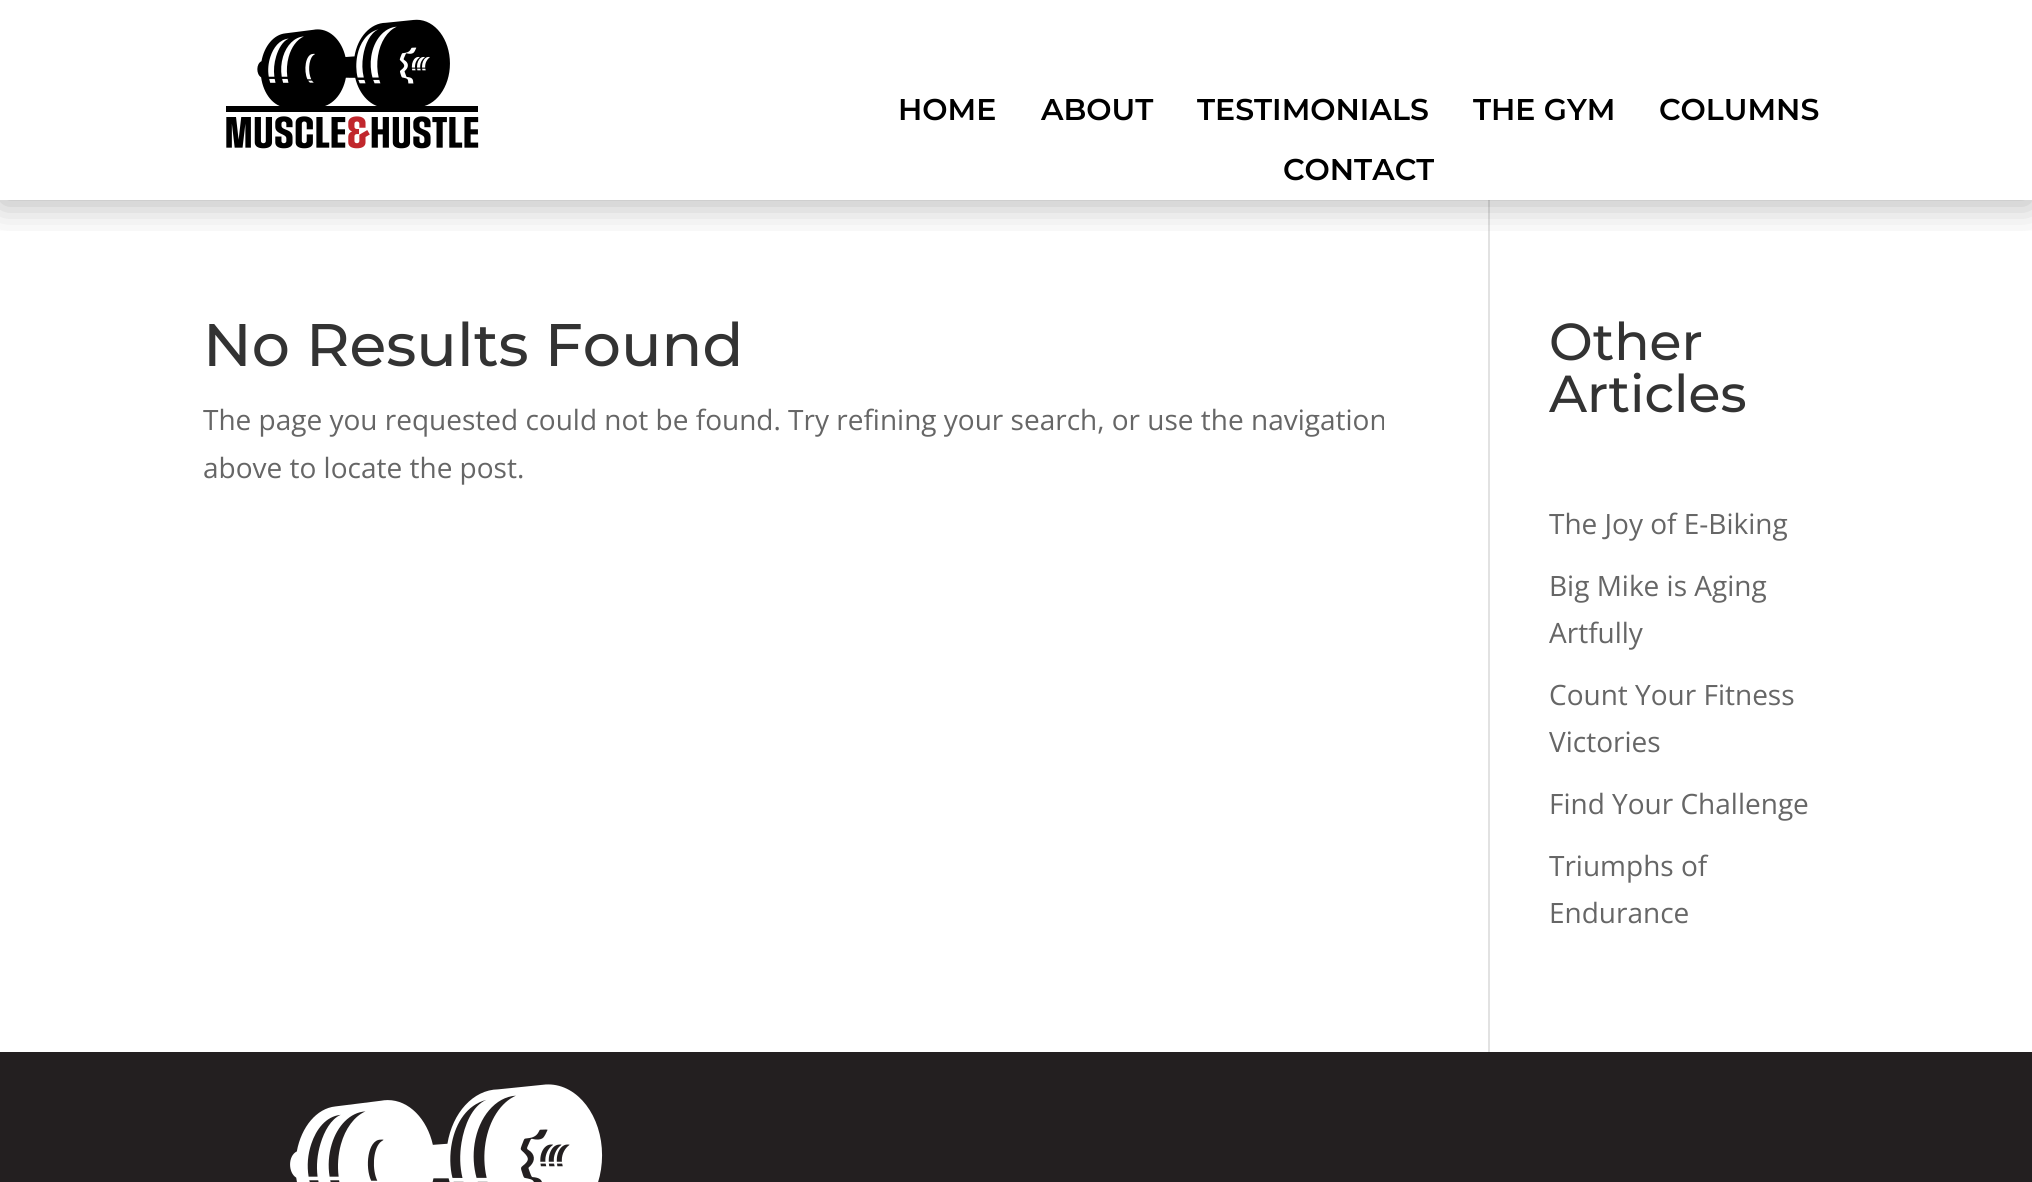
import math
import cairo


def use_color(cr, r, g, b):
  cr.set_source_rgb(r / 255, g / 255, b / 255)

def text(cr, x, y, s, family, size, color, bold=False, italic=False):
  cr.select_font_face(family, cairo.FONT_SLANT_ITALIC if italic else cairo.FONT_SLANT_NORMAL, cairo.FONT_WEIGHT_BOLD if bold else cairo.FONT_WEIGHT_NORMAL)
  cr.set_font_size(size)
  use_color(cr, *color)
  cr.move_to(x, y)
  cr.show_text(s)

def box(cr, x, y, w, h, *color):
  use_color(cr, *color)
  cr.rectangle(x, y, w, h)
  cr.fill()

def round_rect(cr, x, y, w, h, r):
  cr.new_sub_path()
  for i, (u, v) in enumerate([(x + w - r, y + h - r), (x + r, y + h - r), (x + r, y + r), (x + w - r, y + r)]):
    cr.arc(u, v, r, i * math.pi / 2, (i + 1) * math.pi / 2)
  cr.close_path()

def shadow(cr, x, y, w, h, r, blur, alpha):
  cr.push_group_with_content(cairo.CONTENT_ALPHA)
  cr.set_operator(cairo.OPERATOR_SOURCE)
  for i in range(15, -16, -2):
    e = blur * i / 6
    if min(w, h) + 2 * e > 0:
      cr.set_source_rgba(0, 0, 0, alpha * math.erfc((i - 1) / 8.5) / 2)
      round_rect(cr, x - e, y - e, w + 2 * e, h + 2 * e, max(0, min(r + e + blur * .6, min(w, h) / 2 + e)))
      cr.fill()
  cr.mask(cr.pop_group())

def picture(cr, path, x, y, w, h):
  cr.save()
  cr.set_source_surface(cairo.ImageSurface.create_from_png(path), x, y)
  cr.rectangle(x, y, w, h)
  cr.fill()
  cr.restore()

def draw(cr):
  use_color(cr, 255, 255, 255)
  cr.paint()
  box(cr, 1488, 200, 2, 852, 226, 226, 226)
  cr.save()
  cr.rectangle(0, 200, 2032, 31)
  cr.clip()
  use_color(cr, 0, 0, 0)
  shadow(cr, 0, 4, 2032, 200, 0, 18, 0.3)
  cr.restore()
  picture(cr, "img_01.png", 226, 19, 253, 130)
  box(cr, 0, 1052, 2032, 130, 35, 31, 32)
  picture(cr, "img_02.png", 290, 1084, 313, 98)
  text(cr, 898, 120, "HOME", "Montserrat SemiBold", 30, (0, 0, 0))
  text(cr, 1041, 120, "ABOUT", "Montserrat SemiBold", 30, (0, 0, 0))
  text(cr, 1197, 120, "TESTIMONIALS", "Montserrat SemiBold", 30, (0, 0, 0))
  text(cr, 1473, 120, "THE GYM", "Montserrat SemiBold", 30, (0, 0, 0))
  text(cr, 1659, 120, "COLUMNS", "Montserrat SemiBold", 30, (0, 0, 0))
  text(cr, 1283, 180, "CONTACT", "Montserrat SemiBold", 30, (0, 0, 0))
  text(cr, 203, 366, "No Results Found", "Montserrat Medium", 60, (51, 51, 51))
  text(cr, 203, 430, "The page you requested could not be found. Try refining your search, or use the navigation", "Open Sans", 28, (102, 102, 102))
  text(cr, 203, 478, "above to locate the post.", "Open Sans", 28, (102, 102, 102))
  text(cr, 1549, 360, "Other", "Montserrat Medium", 52, (51, 51, 51))
  text(cr, 1549, 412, "Articles", "Montserrat Medium", 52, (51, 51, 51))
  text(cr, 1549, 534, "The Joy of E-Biking", "Open Sans", 28, (102, 102, 102))
  text(cr, 1549, 596, "Big Mike is Aging", "Open Sans", 28, (102, 102, 102))
  text(cr, 1549, 643, "Artfully", "Open Sans", 28, (102, 102, 102))
  text(cr, 1549, 705, "Count Your Fitness", "Open Sans", 28, (102, 102, 102))
  text(cr, 1549, 752, "Victories", "Open Sans", 28, (102, 102, 102))
  text(cr, 1549, 814, "Find Your Challenge", "Open Sans", 28, (102, 102, 102))
  text(cr, 1549, 876, "Triumphs of", "Open Sans", 28, (102, 102, 102))
  text(cr, 1549, 923, "Endurance", "Open Sans", 28, (102, 102, 102))


surface = cairo.ImageSurface(cairo.FORMAT_RGB24, 2032, 1182)
cr = cairo.Context(surface)
options = cairo.FontOptions()
options.set_hint_metrics(cairo.HINT_METRICS_OFF)
options.set_hint_style(cairo.HINT_STYLE_NONE)
cr.set_font_options(options)
cr.set_miter_limit(4)
draw(cr)
surface.write_to_png("out.png")
